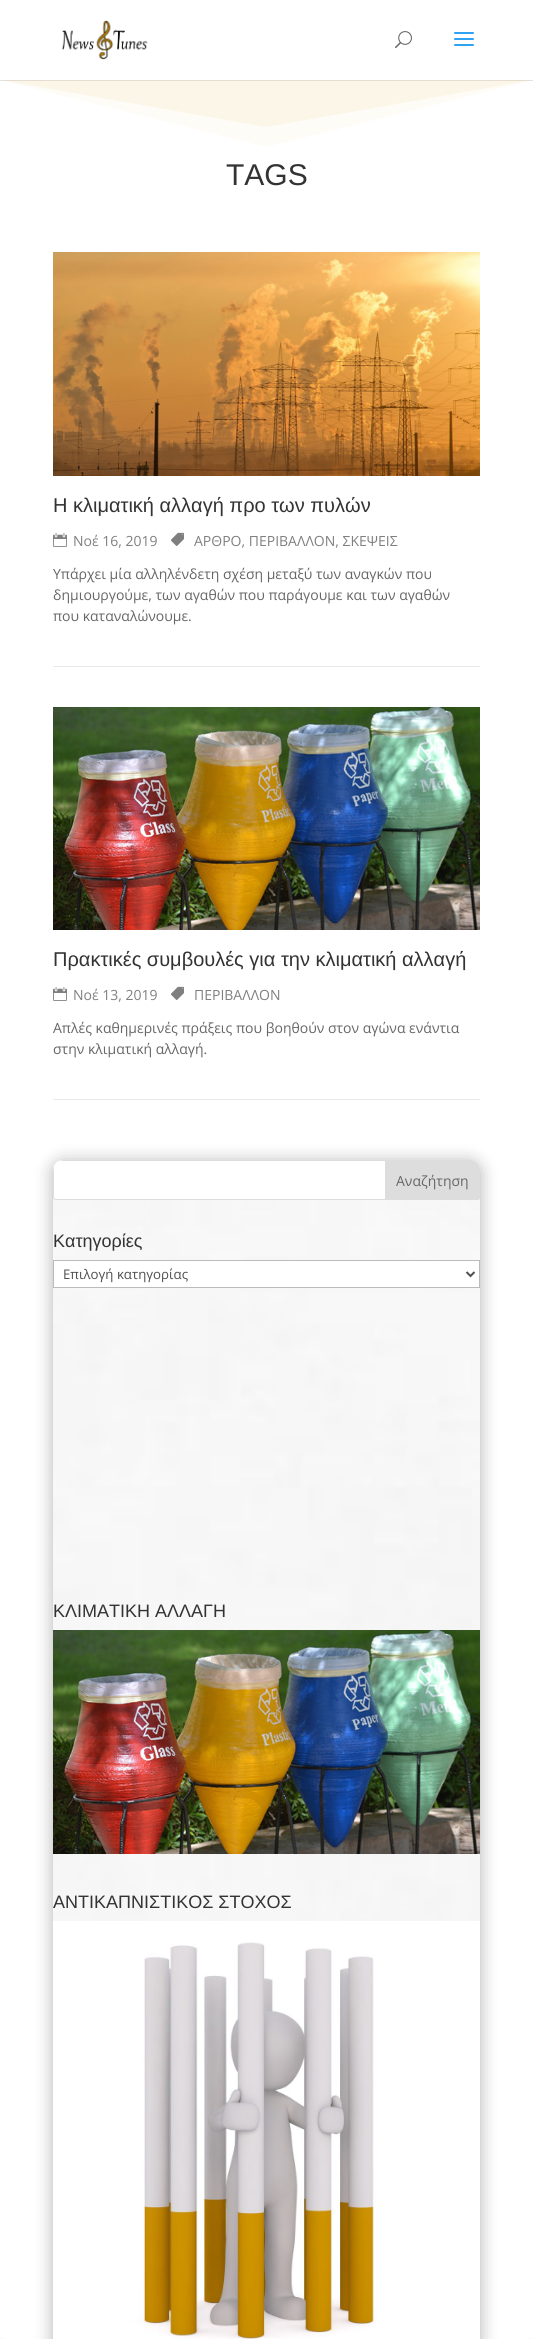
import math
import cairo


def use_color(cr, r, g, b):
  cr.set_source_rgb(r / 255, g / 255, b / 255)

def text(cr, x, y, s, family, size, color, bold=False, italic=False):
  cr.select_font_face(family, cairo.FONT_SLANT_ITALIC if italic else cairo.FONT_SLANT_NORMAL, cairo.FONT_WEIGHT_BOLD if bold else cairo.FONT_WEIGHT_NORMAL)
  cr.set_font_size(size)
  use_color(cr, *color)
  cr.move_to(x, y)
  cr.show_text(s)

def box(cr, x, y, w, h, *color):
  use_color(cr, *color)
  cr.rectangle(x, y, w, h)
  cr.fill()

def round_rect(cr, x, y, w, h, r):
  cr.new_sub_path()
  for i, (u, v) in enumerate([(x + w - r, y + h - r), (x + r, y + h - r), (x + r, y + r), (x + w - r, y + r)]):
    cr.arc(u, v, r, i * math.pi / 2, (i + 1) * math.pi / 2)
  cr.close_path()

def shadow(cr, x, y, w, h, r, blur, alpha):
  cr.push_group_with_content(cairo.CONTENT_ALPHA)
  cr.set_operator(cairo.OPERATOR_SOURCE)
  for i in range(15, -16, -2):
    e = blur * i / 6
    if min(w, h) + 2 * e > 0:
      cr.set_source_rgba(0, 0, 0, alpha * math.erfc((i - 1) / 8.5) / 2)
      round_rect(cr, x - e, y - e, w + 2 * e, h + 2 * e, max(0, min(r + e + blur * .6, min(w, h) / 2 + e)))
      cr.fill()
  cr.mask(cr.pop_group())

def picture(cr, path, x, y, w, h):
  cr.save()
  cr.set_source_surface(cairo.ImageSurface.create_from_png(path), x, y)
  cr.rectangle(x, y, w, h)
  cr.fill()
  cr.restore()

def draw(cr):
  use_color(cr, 255, 255, 255)
  cr.paint()
  use_color(cr, 254, 252, 247)
  cr.new_path()
  cr.move_to(266, 147)
  cr.line_to(533, 80)
  cr.line_to(0, 80)
  cr.close_path()
  cr.fill()
  use_color(cr, 252, 246, 232)
  cr.new_path()
  cr.move_to(266, 127)
  cr.line_to(533, 80)
  cr.line_to(0, 80)
  cr.close_path()
  cr.fill()
  cr.set_source_rgba(0, 0, 0, 0.1)
  cr.rectangle(0, 80, 533, 1)
  cr.fill()
  picture(cr, "img_01.png", 61, 20, 87, 40)
  picture(cr, "img_02.png", 395, 31, 17, 18)
  picture(cr, "img_03.png", 454, 32, 20, 14)
  box(cr, 53, 666, 427, 1, 233, 233, 233)
  picture(cr, "img_04.png", 53, 252, 427, 224)
  picture(cr, "img_05.png", 53, 533, 14, 14)
  picture(cr, "img_06.png", 171, 532, 13, 14)
  box(cr, 53, 1099, 427, 1, 233, 233, 233)
  picture(cr, "img_07.png", 53, 707, 427, 223)
  picture(cr, "img_05.png", 53, 987, 14, 14)
  picture(cr, "img_06.png", 171, 986, 13, 14)
  use_color(cr, 254, 252, 247)
  cr.new_path()
  cr.move_to(266, 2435)
  cr.line_to(0, 2336)
  cr.line_to(0, 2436)
  cr.line_to(533, 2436)
  cr.line_to(533, 2336)
  cr.close_path()
  cr.fill()
  use_color(cr, 0, 0, 0)
  shadow(cr, 53, 1162, 427, 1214, 10, 9, 0.3)
  picture(cr, "img_08.png", 53, 1160, 427, 761)
  use_color(cr, 255, 255, 255)
  cr.new_path()
  cr.move_to(63, 1160)
  cr.line_to(470, 1160)
  cr.curve_to(475.5, 1160, 480, 1164.5, 480, 1170)
  cr.line_to(480, 1197)
  cr.curve_to(480, 1198.5, 478.5, 1200, 477, 1200)
  cr.line_to(56, 1200)
  cr.curve_to(54.5, 1200, 53, 1198.5, 53, 1197)
  cr.line_to(53, 1170)
  cr.curve_to(53, 1164.5, 57.5, 1160, 63, 1160)
  cr.close_path()
  cr.fill()
  use_color(cr, 221, 221, 221)
  cr.set_fill_rule(cairo.FILL_RULE_EVEN_ODD)
  cr.new_path()
  cr.move_to(53, 1170)
  cr.line_to(53, 1197)
  cr.curve_to(53, 1199, 54, 1200, 56, 1200)
  cr.line_to(477, 1200)
  cr.curve_to(479, 1200, 480, 1199, 480, 1197)
  cr.line_to(480, 1170)
  cr.line_to(479, 1166)
  cr.line_to(479, 1197)
  cr.curve_to(479, 1198, 478, 1199, 477, 1199)
  cr.line_to(56, 1199)
  cr.curve_to(55, 1199, 54, 1198, 54, 1197)
  cr.line_to(54, 1166)
  cr.close_path()
  cr.move_to(63, 1160)
  cr.line_to(59, 1161)
  cr.line_to(474, 1161)
  cr.line_to(470, 1160)
  cr.close_path()
  cr.fill()
  cr.new_path()
  cr.move_to(385, 1160)
  cr.line_to(470, 1160)
  cr.curve_to(475.5, 1160, 480, 1164.5, 480, 1170)
  cr.line_to(480, 1197)
  cr.curve_to(480, 1198.5, 478.5, 1200, 477, 1200)
  cr.line_to(385, 1200)
  cr.close_path()
  cr.fill()
  cr.set_fill_rule(cairo.FILL_RULE_WINDING)
  cr.new_path()
  cr.move_to(385, 1160)
  cr.line_to(385, 1200)
  cr.line_to(477, 1200)
  cr.curve_to(479, 1200, 480, 1199, 480, 1197)
  cr.line_to(480, 1170)
  cr.line_to(479, 1166)
  cr.line_to(479, 1197)
  cr.curve_to(479, 1198, 478, 1199, 477, 1199)
  cr.line_to(386, 1199)
  cr.line_to(386, 1161)
  cr.line_to(474, 1161)
  cr.line_to(470, 1160)
  cr.close_path()
  cr.fill()
  use_color(cr, 255, 255, 255)
  cr.rectangle(53.5, 1260.5, 426, 27)
  cr.fill_preserve()
  use_color(cr, 187, 187, 187)
  cr.set_line_width(1)
  cr.stroke()
  cr.new_path()
  cr.move_to(466.5, 1272)
  cr.line_to(470.5, 1276)
  cr.line_to(474.5, 1272)
  use_color(cr, 78, 78, 78)
  cr.set_line_width(2)
  cr.stroke()
  picture(cr, "img_09.png", 53, 1630, 427, 224)
  picture(cr, "img_10.png", 53, 1921, 427, 418)
  text(cr, 226, 185, "TAGS", "Liberation Sans", 30, (51, 51, 51))
  text(cr, 53, 512, "Η κλιματική αλλαγή προ των πυλών", "Liberation Sans", 20, (51, 51, 51))
  text(cr, 73, 546, "Νοέ 16, 2019", "Open Sans", 14, (128, 128, 128))
  text(cr, 194, 546, "ΑΡΘΡΟ, ΠΕΡΙΒΑΛΛΟΝ, ΣΚΕΨΕΙΣ", "Open Sans", 14, (128, 128, 128))
  text(cr, 53, 579, "Υπάρχει μία αλληλένδετη σχέση μεταξύ των αναγκών που", "Open Sans", 14, (102, 102, 102))
  text(cr, 53, 600, "δημιουργούμε, των αγαθών που παράγουμε και των αγαθών", "Open Sans", 14, (102, 102, 102))
  text(cr, 53, 621, "που καταναλώνουμε.", "Open Sans", 14, (102, 102, 102))
  text(cr, 53, 966, "Πρακτικές συμβουλές για την κλιματική αλλαγή", "Liberation Sans", 20, (51, 51, 51))
  text(cr, 73, 1000, "Νοέ 13, 2019", "Open Sans", 14, (128, 128, 128))
  text(cr, 194, 1000, "ΠΕΡΙΒΑΛΛΟΝ", "Open Sans", 14, (128, 128, 128))
  text(cr, 53, 1033, "Απλές καθημερινές πράξεις που βοηθούν στον αγώνα ενάντια", "Open Sans", 14, (102, 102, 102))
  text(cr, 53, 1054, "στην κλιματική αλλαγή.", "Open Sans", 14, (102, 102, 102))
  text(cr, 396, 1186, "Αναζήτηση", "Open Sans", 14, (102, 102, 102))
  text(cr, 53, 1247, "Kατηγορίες", "Liberation Sans", 18, (51, 51, 51))
  text(cr, 63, 1279, "Επιλογή κατηγορίας", "Open Sans", 13.25, (78, 78, 78))
  text(cr, 53, 1617, "ΚΛΙΜΑΤΙΚΗ ΑΛΛΑΓΗ", "Liberation Sans", 18, (51, 51, 51))
  text(cr, 53, 1908, "ΑΝΤΙΚΑΠΝΙΣΤΙΚΟΣ ΣΤΟΧΟΣ", "Liberation Sans", 18, (51, 51, 51))


surface = cairo.ImageSurface(cairo.FORMAT_RGB24, 533, 2339)
cr = cairo.Context(surface)
options = cairo.FontOptions()
options.set_hint_metrics(cairo.HINT_METRICS_OFF)
options.set_hint_style(cairo.HINT_STYLE_NONE)
cr.set_font_options(options)
cr.set_miter_limit(4)
draw(cr)
surface.write_to_png("out.png")
